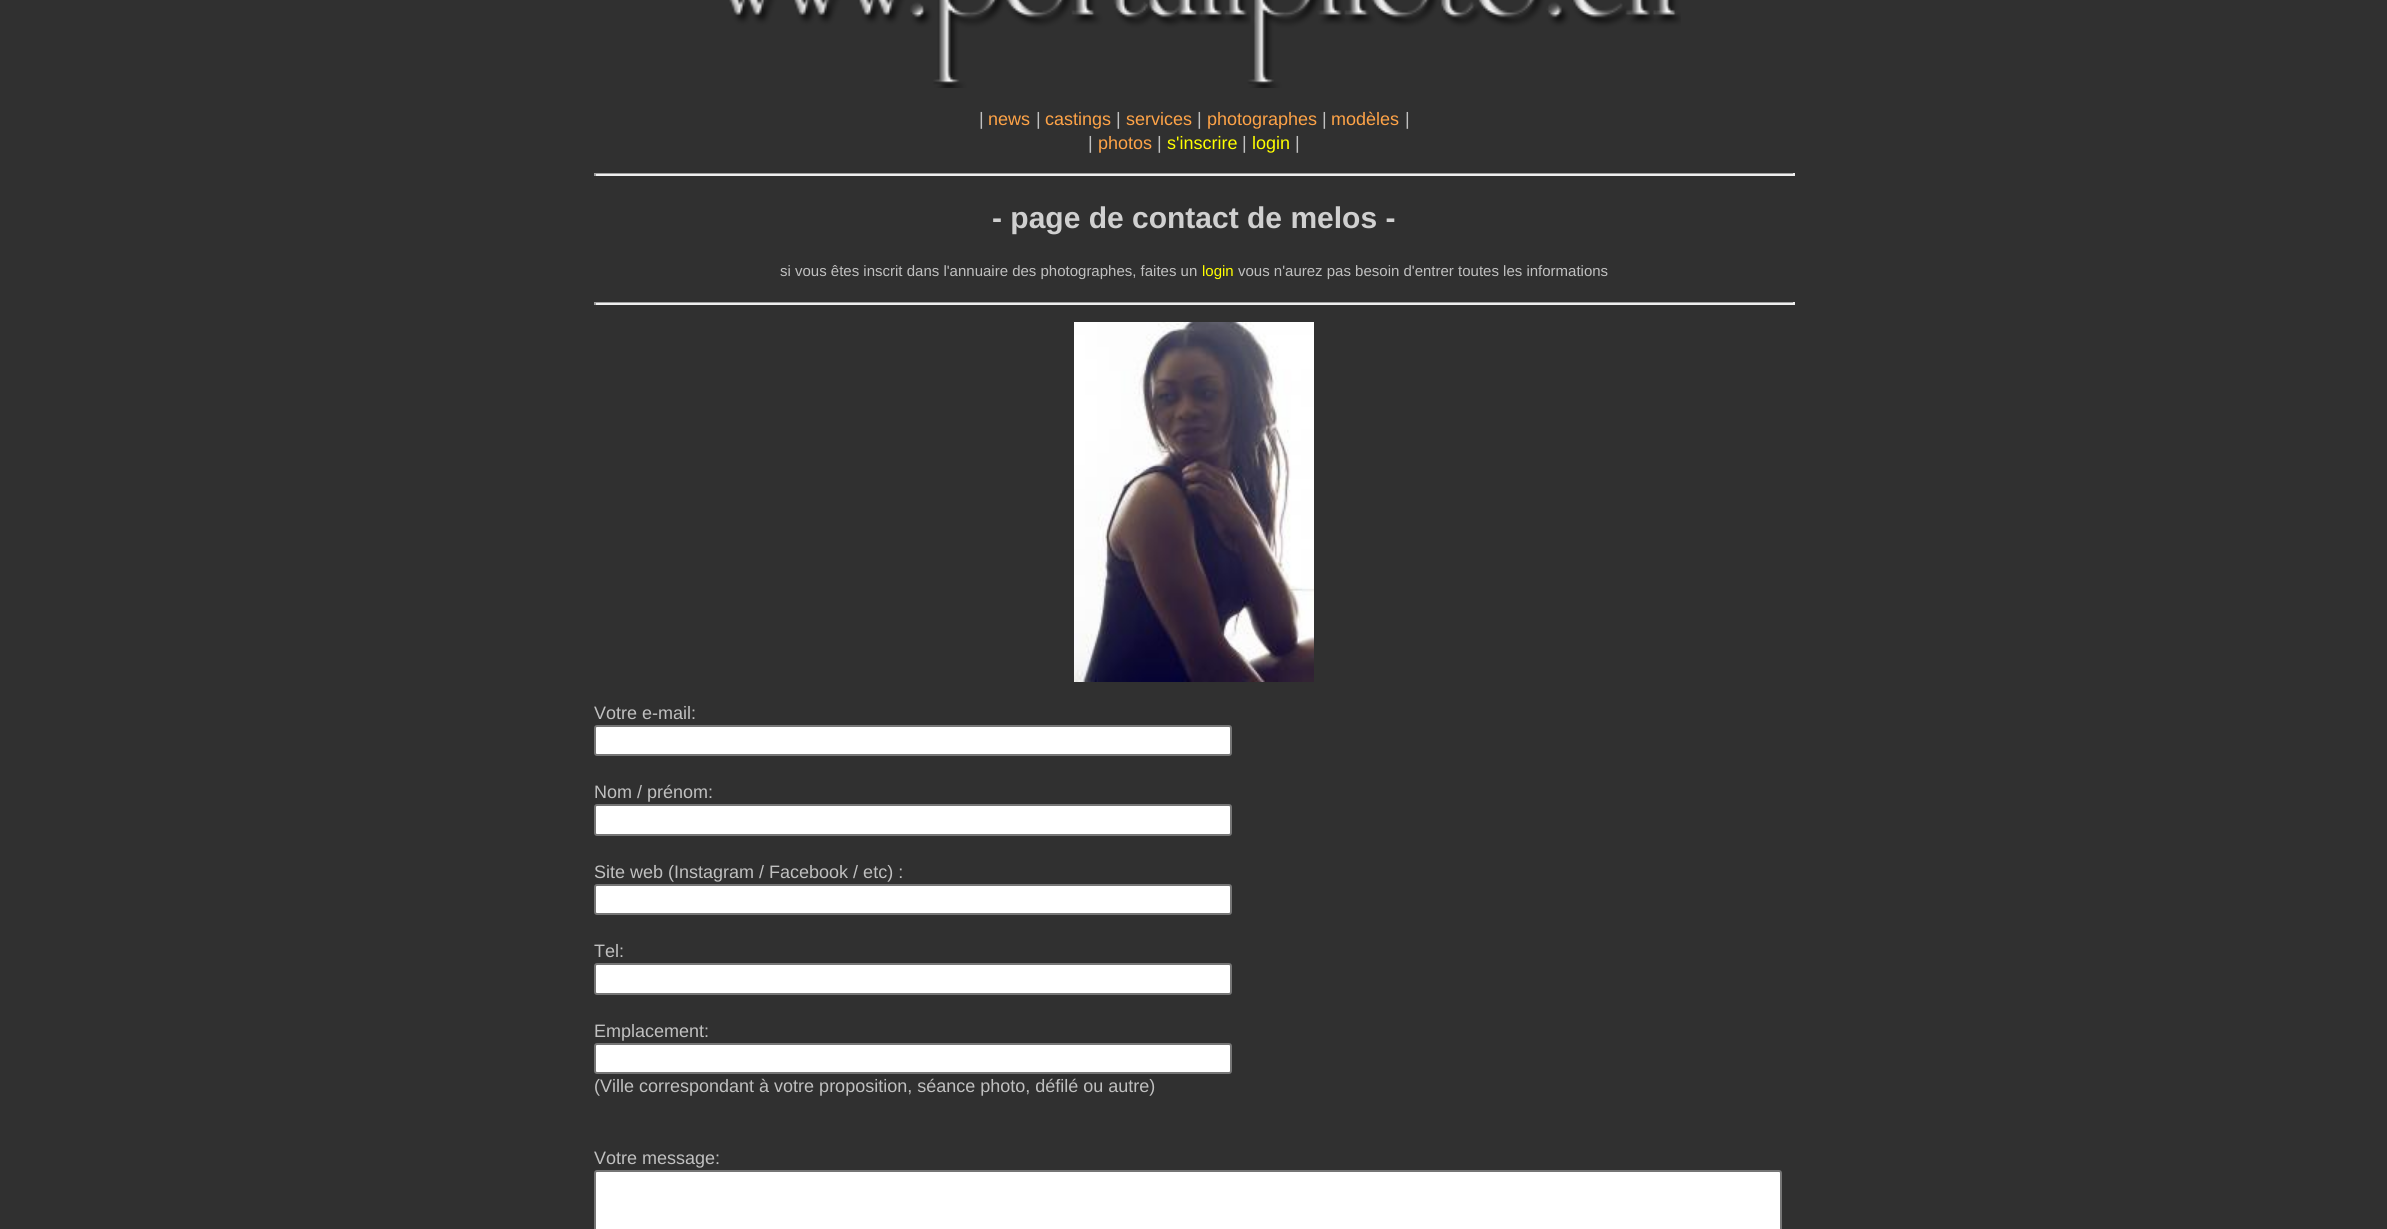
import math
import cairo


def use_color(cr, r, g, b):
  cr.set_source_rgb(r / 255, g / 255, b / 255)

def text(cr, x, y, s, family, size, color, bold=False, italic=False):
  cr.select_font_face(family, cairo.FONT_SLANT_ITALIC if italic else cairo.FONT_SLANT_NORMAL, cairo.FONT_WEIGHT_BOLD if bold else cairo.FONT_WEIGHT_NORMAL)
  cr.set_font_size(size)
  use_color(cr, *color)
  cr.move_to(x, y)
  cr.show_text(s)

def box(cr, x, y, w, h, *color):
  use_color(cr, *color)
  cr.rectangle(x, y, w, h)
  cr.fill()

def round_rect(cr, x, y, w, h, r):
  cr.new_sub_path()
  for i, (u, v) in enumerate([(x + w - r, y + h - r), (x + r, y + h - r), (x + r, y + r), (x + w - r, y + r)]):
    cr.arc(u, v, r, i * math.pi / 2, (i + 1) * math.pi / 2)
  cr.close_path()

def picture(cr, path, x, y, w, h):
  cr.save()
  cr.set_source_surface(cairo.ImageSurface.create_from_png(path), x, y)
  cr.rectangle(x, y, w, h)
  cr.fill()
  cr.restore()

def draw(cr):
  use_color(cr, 48, 48, 48)
  cr.paint()
  picture(cr, "img_01.png", 729, 0, 952, 88)
  box(cr, 594, 173, 1200, 1, 159, 159, 159)
  box(cr, 1793, 173, 2, 3, 238, 238, 238)
  box(cr, 594, 174, 1200, 2, 238, 238, 238)
  box(cr, 594, 173, 2, 3, 159, 159, 159)
  box(cr, 594, 302, 1200, 1, 159, 159, 159)
  box(cr, 1793, 302, 2, 3, 238, 238, 238)
  box(cr, 594, 303, 1200, 2, 238, 238, 238)
  box(cr, 594, 302, 2, 3, 159, 159, 159)
  picture(cr, "img_02.png", 1074, 322, 240, 360)
  use_color(cr, 255, 255, 255)
  round_rect(cr, 595, 726, 636, 29, 2)
  cr.fill_preserve()
  use_color(cr, 118, 118, 118)
  cr.stroke()
  use_color(cr, 255, 255, 255)
  round_rect(cr, 595, 805, 636, 30, 2)
  cr.fill_preserve()
  use_color(cr, 118, 118, 118)
  cr.stroke()
  use_color(cr, 255, 255, 255)
  round_rect(cr, 595, 885, 636, 29, 2)
  cr.fill_preserve()
  use_color(cr, 118, 118, 118)
  cr.stroke()
  use_color(cr, 255, 255, 255)
  round_rect(cr, 595, 964, 636, 30, 2)
  cr.fill_preserve()
  use_color(cr, 118, 118, 118)
  cr.stroke()
  use_color(cr, 255, 255, 255)
  round_rect(cr, 595, 1044, 636, 29, 2)
  cr.fill_preserve()
  use_color(cr, 118, 118, 118)
  cr.stroke()
  use_color(cr, 255, 255, 255)
  round_rect(cr, 595, 1171, 1186, 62, 2)
  cr.fill_preserve()
  use_color(cr, 118, 118, 118)
  cr.stroke()
  text(cr, 979, 125, "|", "Liberation Sans", 18, (192, 192, 192))
  text(cr, 988, 125, "news", "Liberation Sans", 18, (254, 163, 71))
  text(cr, 1036, 125, "|", "Liberation Sans", 18, (192, 192, 192))
  text(cr, 1045, 125, "castings", "Liberation Sans", 18, (254, 163, 71))
  text(cr, 1116, 125, "|", "Liberation Sans", 18, (192, 192, 192))
  text(cr, 1126, 125, "services", "Liberation Sans", 18, (254, 163, 71))
  text(cr, 1197, 125, "|", "Liberation Sans", 18, (192, 192, 192))
  text(cr, 1207, 125, "photographes", "Liberation Sans", 18, (254, 163, 71))
  text(cr, 1322, 125, "|", "Liberation Sans", 18, (192, 192, 192))
  text(cr, 1331, 125, "modèles", "Liberation Sans", 18, (254, 163, 71))
  text(cr, 1405, 125, "|", "Liberation Sans", 18, (192, 192, 192))
  text(cr, 1088, 149, "|", "Liberation Sans", 18, (192, 192, 192))
  text(cr, 1098, 149, "photos", "Liberation Sans", 18, (254, 163, 71))
  text(cr, 1157, 149, "|", "Liberation Sans", 18, (192, 192, 192))
  text(cr, 1167, 149, "s'inscrire", "Liberation Sans", 18, (255, 255, 0))
  text(cr, 1242, 149, "|", "Liberation Sans", 18, (192, 192, 192))
  text(cr, 1252, 149, "login", "Liberation Sans", 18, (255, 255, 0))
  text(cr, 1295, 149, "|", "Liberation Sans", 18, (192, 192, 192))
  text(cr, 992, 228, "- page de contact de melos -", "Liberation Sans", 30, (208, 208, 208), bold=True)
  text(cr, 780, 276, "si vous êtes inscrit dans l'annuaire des photographes, faites un", "Liberation Sans", 15, (192, 192, 192))
  text(cr, 1202, 276, "login", "Liberation Sans", 15, (255, 255, 0))
  text(cr, 1238, 276, "vous n'aurez pas besoin d'entrer toutes les informations", "Liberation Sans", 15, (192, 192, 192))
  text(cr, 594, 719, "Votre e-mail:", "Liberation Sans", 18, (192, 192, 192))
  text(cr, 594, 798, "Nom / prénom:", "Liberation Sans", 18, (192, 192, 192))
  text(cr, 594, 878, "Site web (Instagram / Facebook / etc) :", "Liberation Sans", 18, (192, 192, 192))
  text(cr, 594, 957, "Tel:", "Liberation Sans", 18, (192, 192, 192))
  text(cr, 594, 1037, "Emplacement:", "Liberation Sans", 18, (192, 192, 192))
  text(cr, 594, 1092, "(Ville correspondant à votre proposition, séance photo, défilé ou autre)", "Liberation Sans", 18, (192, 192, 192))
  text(cr, 594, 1164, "Votre message:", "Liberation Sans", 18, (192, 192, 192))


surface = cairo.ImageSurface(cairo.FORMAT_RGB24, 2387, 1229)
cr = cairo.Context(surface)
options = cairo.FontOptions()
options.set_hint_metrics(cairo.HINT_METRICS_OFF)
options.set_hint_style(cairo.HINT_STYLE_NONE)
cr.set_font_options(options)
cr.set_miter_limit(4)
draw(cr)
surface.write_to_png("out.png")
